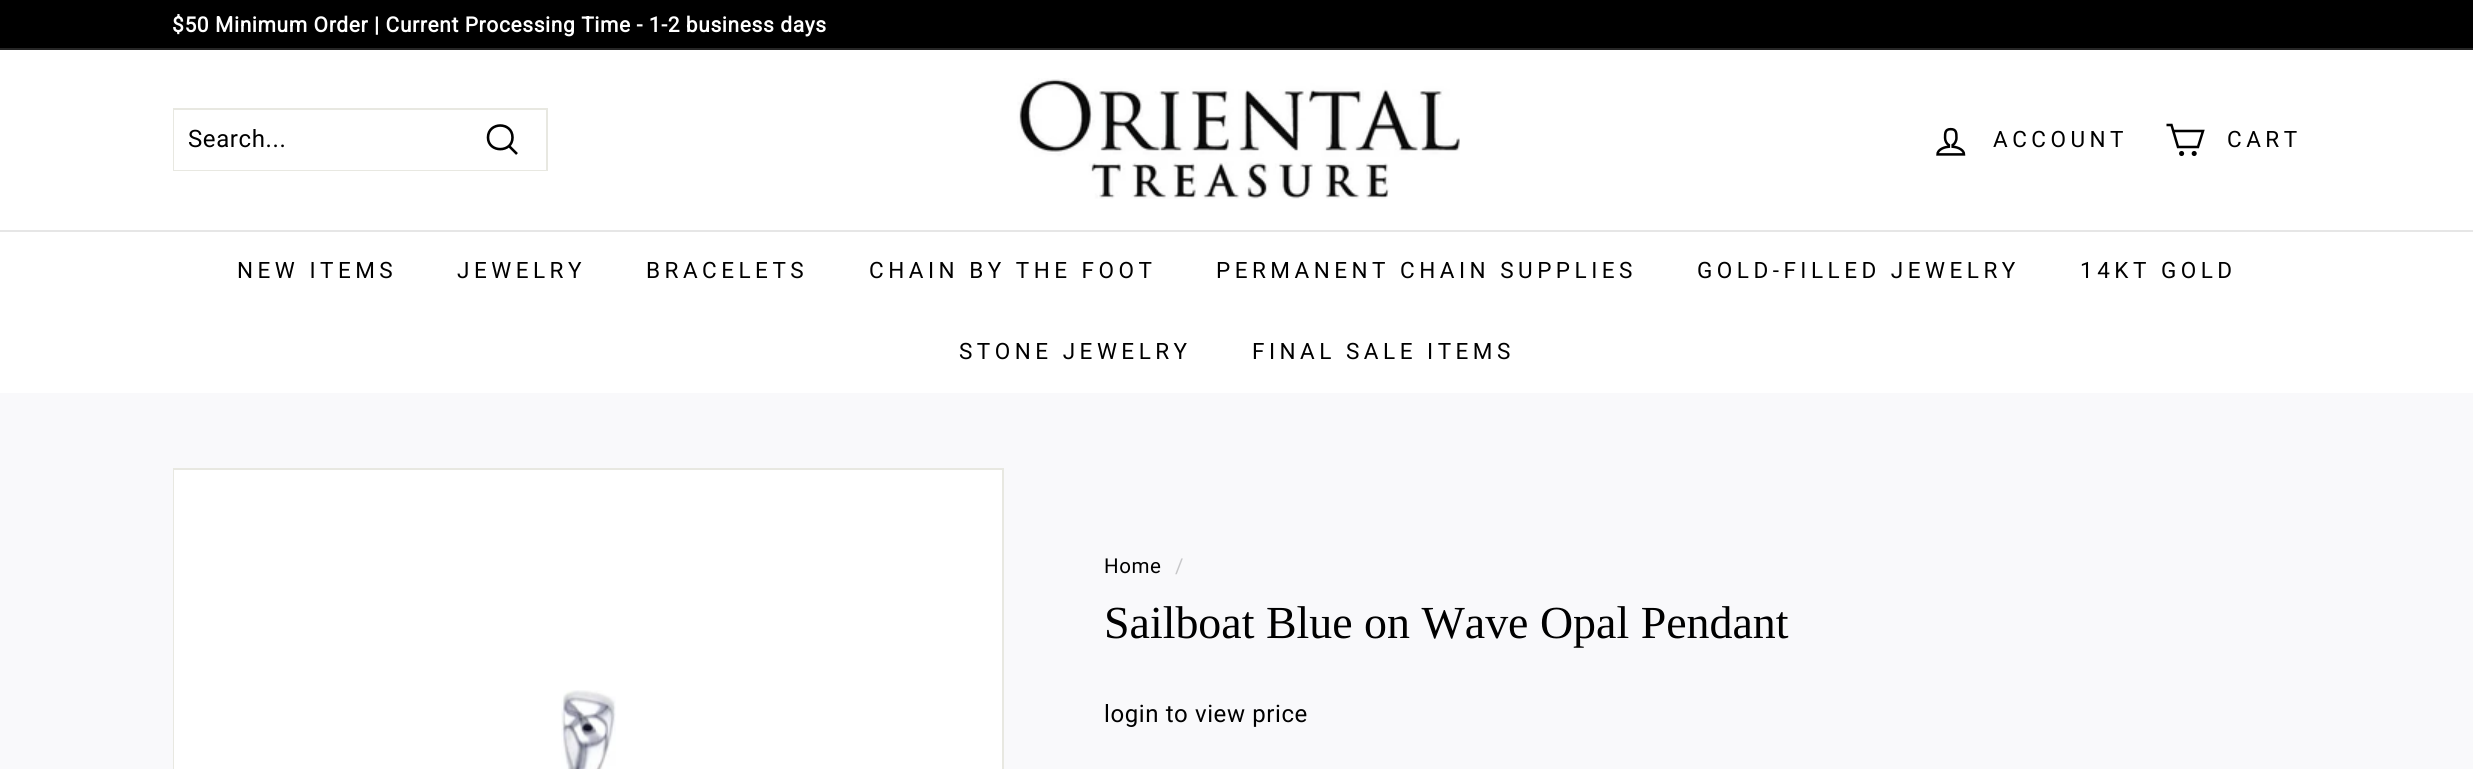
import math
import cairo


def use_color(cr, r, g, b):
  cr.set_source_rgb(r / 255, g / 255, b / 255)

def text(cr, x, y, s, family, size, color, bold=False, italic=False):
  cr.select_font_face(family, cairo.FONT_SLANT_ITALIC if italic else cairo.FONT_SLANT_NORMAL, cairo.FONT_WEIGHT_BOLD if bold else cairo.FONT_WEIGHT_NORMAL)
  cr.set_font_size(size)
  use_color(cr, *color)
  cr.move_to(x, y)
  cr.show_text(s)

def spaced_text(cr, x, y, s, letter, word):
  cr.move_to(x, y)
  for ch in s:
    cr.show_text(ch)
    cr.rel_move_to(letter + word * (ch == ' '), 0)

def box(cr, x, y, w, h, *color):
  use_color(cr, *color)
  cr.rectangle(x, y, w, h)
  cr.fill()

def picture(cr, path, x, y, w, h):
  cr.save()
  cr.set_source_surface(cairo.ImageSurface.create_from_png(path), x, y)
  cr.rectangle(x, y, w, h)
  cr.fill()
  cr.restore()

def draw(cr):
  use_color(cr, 249, 249, 251)
  cr.paint()
  box(cr, 0, 0, 2473, 48, 0, 0, 0)
  box(cr, 0, 48, 2473, 2, 38, 38, 38)
  box(cr, 0, 50, 2473, 180, 255, 255, 255)
  cr.rectangle(174, 109, 373, 61)
  use_color(cr, 232, 232, 225)
  cr.stroke()
  box(cr, 174, 110, 372, 60, 255, 255, 255)
  cr.new_path()
  cr.move_to(512.5, 137.5)
  cr.curve_to(512.5, 153, 488, 153, 488, 137.5)
  cr.curve_to(488, 121.5, 512.5, 121.5, 512.5, 137.5)
  cr.close_path()
  cr.move_to(517, 154)
  cr.line_to(509, 146)
  use_color(cr, 0, 0, 0)
  cr.set_line_width(2.6)
  cr.stroke()
  picture(cr, "img_01.png", 1017, 78, 443, 121)
  picture(cr, "img_02.png", 1936, 127, 30, 29)
  cr.new_path()
  cr.move_to(2173.5, 131)
  cr.line_to(2203, 131)
  cr.line_to(2198, 147)
  cr.line_to(2178, 147)
  cr.line_to(2171.5, 125)
  cr.line_to(2166.5, 125)
  cr.set_line_width(2.5)
  cr.stroke()
  cr.arc(2181.6, 153.5, 1.3, 0, 2 * math.pi)
  cr.stroke()
  cr.arc(2194.2, 153.5, 1.3, 0, 2 * math.pi)
  cr.stroke()
  use_color(cr, 255, 255, 255)
  cr.new_path()
  cr.move_to(0, 230)
  cr.line_to(0, 393)
  cr.line_to(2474, 393)
  cr.line_to(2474, 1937)
  cr.line_to(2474, 230)
  cr.close_path()
  cr.fill()
  box(cr, 0, 230, 2473, 2, 230, 230, 230)
  cr.rectangle(174, 469, 829, 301)
  use_color(cr, 232, 232, 225)
  cr.set_line_width(2)
  cr.stroke()
  box(cr, 174, 470, 828, 299, 255, 255, 255)
  picture(cr, "img_03.png", 561, 690, 55, 79)
  cr.select_font_face("Roboto", cairo.FONT_SLANT_NORMAL, cairo.FONT_WEIGHT_BOLD)
  cr.set_font_size(21)
  spaced_text(cr, 172, 32, "$50 Minimum Order | Current Processing Time - 1-2 business days", 0.6, 0)
  cr.select_font_face("Roboto")
  cr.set_font_size(24)
  use_color(cr, 0, 0, 0)
  spaced_text(cr, 188, 147, "Search...", 0.6, 0)
  cr.set_font_size(22.5)
  spaced_text(cr, 1993, 147, "ACCOUNT", 4.5, 0)
  spaced_text(cr, 2227, 147, "CART", 4.5, 0)
  spaced_text(cr, 237, 278, "NEW ITEMS", 4.5, 0)
  spaced_text(cr, 457, 278, "JEWELRY", 4.5, 0)
  spaced_text(cr, 646, 278, "BRACELETS", 4.5, 0)
  spaced_text(cr, 869, 278, "CHAIN BY THE FOOT", 4.5, 0)
  spaced_text(cr, 1216, 278, "PERMANENT CHAIN SUPPLIES", 4.5, 0)
  spaced_text(cr, 1697, 278, "GOLD-FILLED JEWELRY", 4.5, 0)
  spaced_text(cr, 2080, 278, "14KT GOLD", 4.5, 0)
  spaced_text(cr, 959, 359, "STONE JEWELRY", 4.5, 0)
  spaced_text(cr, 1252, 359, "FINAL SALE ITEMS", 4.5, 0)
  cr.set_font_size(20.5)
  spaced_text(cr, 1104, 573, "Home", 0.6, 0)
  use_color(cr, 199, 199, 201)
  spaced_text(cr, 1175, 573, "/", 0.6, 0)
  text(cr, 1104, 638, "Sailboat Blue on Wave Opal Pendant", "Liberation Serif", 45.9, (0, 0, 0))
  cr.select_font_face("Roboto")
  cr.set_font_size(24)
  spaced_text(cr, 1104, 722, "login to view price", 0.6, 0)


surface = cairo.ImageSurface(cairo.FORMAT_RGB24, 2473, 769)
cr = cairo.Context(surface)
options = cairo.FontOptions()
options.set_hint_metrics(cairo.HINT_METRICS_OFF)
options.set_hint_style(cairo.HINT_STYLE_NONE)
cr.set_font_options(options)
cr.set_miter_limit(4)
draw(cr)
surface.write_to_png("out.png")
